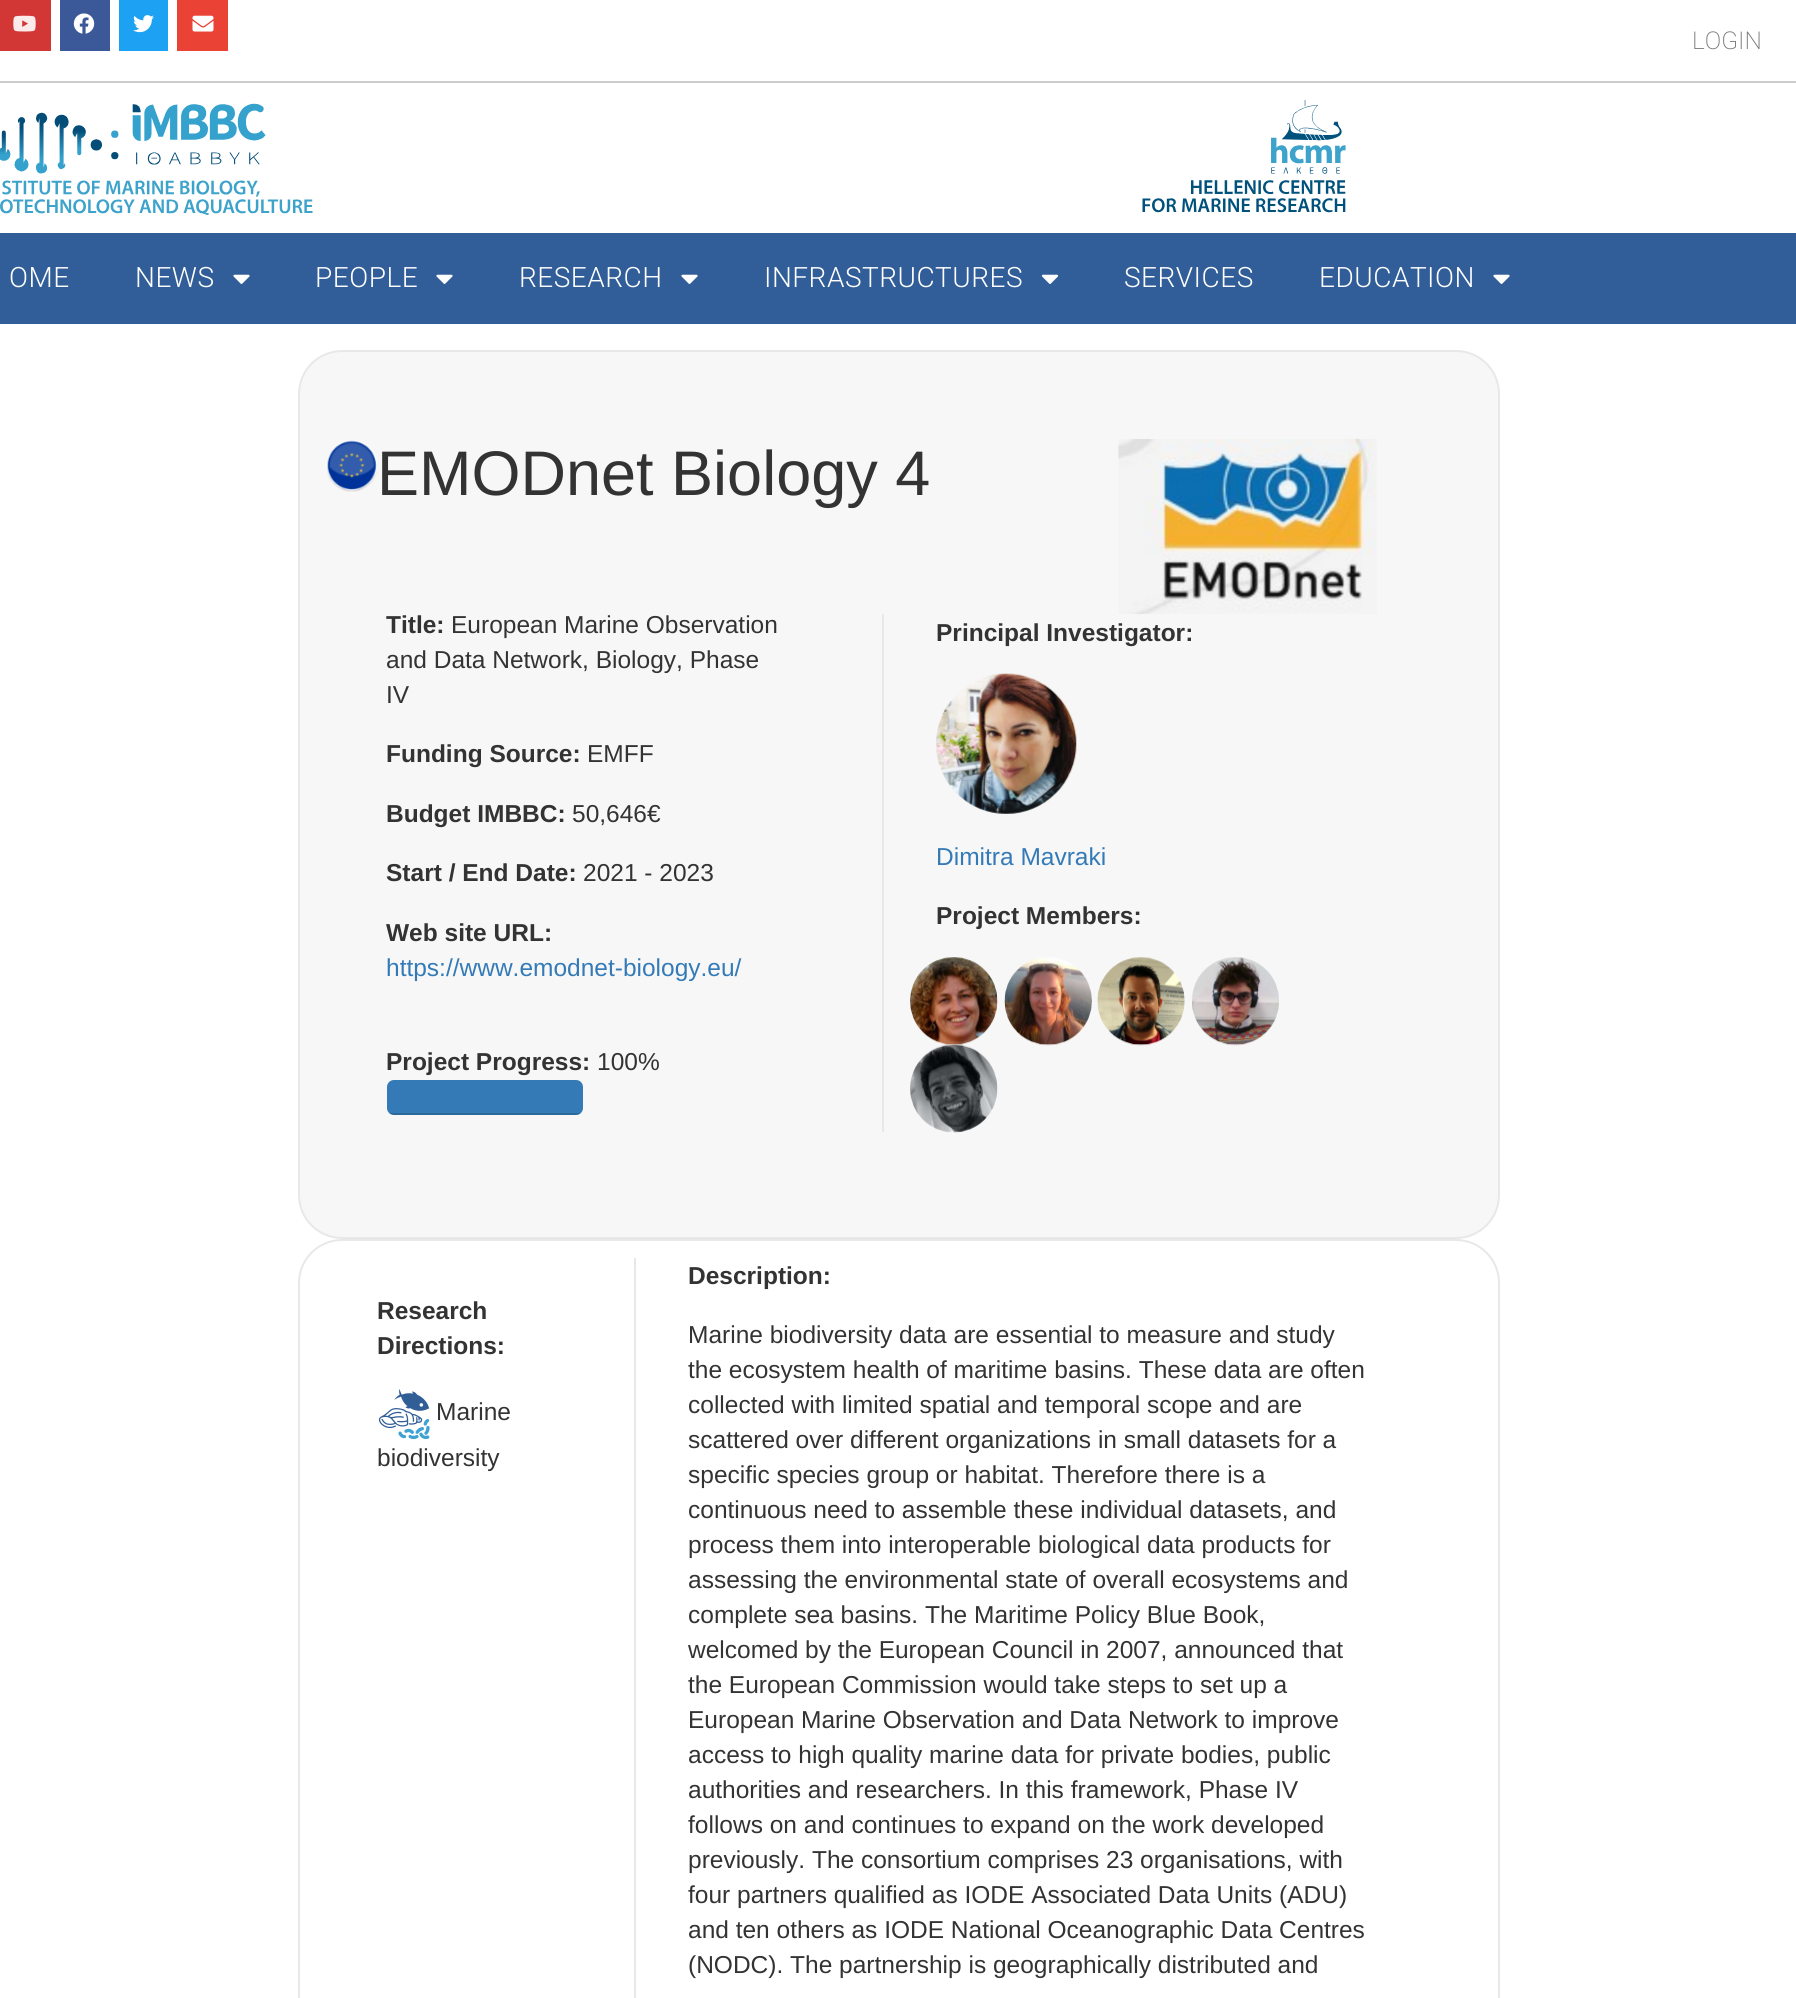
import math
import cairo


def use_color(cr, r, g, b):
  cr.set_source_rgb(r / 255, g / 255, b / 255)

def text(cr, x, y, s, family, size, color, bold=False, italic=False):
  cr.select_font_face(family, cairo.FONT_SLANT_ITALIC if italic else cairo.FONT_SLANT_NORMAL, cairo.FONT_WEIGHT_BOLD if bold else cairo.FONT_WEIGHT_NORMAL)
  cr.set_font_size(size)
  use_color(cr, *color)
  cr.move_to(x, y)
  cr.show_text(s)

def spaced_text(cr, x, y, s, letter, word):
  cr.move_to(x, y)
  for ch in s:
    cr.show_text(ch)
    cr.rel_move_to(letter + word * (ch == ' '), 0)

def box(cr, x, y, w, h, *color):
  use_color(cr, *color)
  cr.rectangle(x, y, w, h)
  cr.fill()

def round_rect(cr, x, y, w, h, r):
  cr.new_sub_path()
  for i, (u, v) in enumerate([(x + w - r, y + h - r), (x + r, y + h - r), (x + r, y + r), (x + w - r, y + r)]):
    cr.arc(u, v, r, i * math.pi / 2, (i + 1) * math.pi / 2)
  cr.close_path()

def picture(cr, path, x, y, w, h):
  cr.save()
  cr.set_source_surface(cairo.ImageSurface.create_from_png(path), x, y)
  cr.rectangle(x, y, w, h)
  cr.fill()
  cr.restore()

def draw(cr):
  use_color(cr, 255, 255, 255)
  cr.paint()
  box(cr, 0, 0, 51, 51, 210, 54, 53)
  picture(cr, "img_01.png", 13, 15, 23, 17)
  box(cr, 60, 0, 50, 51, 59, 89, 152)
  picture(cr, "img_02.png", 73, 13, 22, 21)
  box(cr, 119, 0, 49, 51, 29, 161, 242)
  picture(cr, "img_03.png", 133, 15, 21, 18)
  box(cr, 177, 0, 51, 51, 234, 67, 53)
  picture(cr, "img_04.png", 192, 15, 22, 17)
  box(cr, 0, 81, 1796, 2, 204, 204, 204)
  picture(cr, "img_05.png", 0, 100, 1346, 115)
  box(cr, 0, 233, 1796, 91, 49, 94, 152)
  picture(cr, "img_06.png", 233, 274, 17, 10)
  picture(cr, "img_06.png", 436, 274, 17, 10)
  picture(cr, "img_06.png", 681, 274, 17, 10)
  picture(cr, "img_07.png", 1041, 274, 18, 10)
  picture(cr, "img_06.png", 1493, 274, 17, 10)
  use_color(cr, 247, 247, 247)
  round_rect(cr, 299, 351, 1200, 887, 43)
  cr.fill_preserve()
  use_color(cr, 232, 232, 232)
  cr.stroke()
  picture(cr, "img_08.png", 327, 440, 50, 52)
  picture(cr, "img_09.png", 1118, 439, 259, 175)
  use_color(cr, 51, 122, 183)
  round_rect(cr, 387, 1080, 196, 35, 7)
  cr.fill()
  cr.save()
  round_rect(cr, 387, 1080, 196, 35, 7)
  cr.clip()
  cr.set_source_rgba(0, 0, 0, 0.15)
  cr.rectangle(387, 1113, 196, 2)
  cr.fill()
  cr.restore()
  box(cr, 882, 614, 2, 518, 232, 232, 232)
  picture(cr, "img_10.png", 936, 673, 141, 141)
  picture(cr, "img_11.png", 910, 957, 88, 89)
  picture(cr, "img_12.png", 1004, 957, 88, 89)
  picture(cr, "img_13.png", 1097, 957, 88, 89)
  picture(cr, "img_14.png", 1192, 957, 87, 89)
  picture(cr, "img_15.png", 910, 1044, 88, 89)
  round_rect(cr, 299, 1240, 1200, 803, 43)
  cr.stroke()
  picture(cr, "img_16.png", 378, 1389, 52, 51)
  box(cr, 634, 1258, 2, 740, 232, 232, 232)
  text(cr, 1692, 49, "LOGIN", "Roboto ExtraLight", 24.5, (122, 122, 122))
  cr.select_font_face("Roboto Light")
  cr.set_font_size(28)
  use_color(cr, 255, 255, 255)
  spaced_text(cr, 9, 287, "OME", 0.5, 0)
  spaced_text(cr, 135, 287, "NEWS", 0.5, 0)
  spaced_text(cr, 315, 287, "PEOPLE", 0.5, 0)
  spaced_text(cr, 519, 287, "RESEARCH", 0.5, 0)
  spaced_text(cr, 764, 287, "INFRASTRUCTURES", 0.5, 0)
  spaced_text(cr, 1124, 287, "SERVICES", 0.5, 0)
  spaced_text(cr, 1319, 287, "EDUCATION", 0.5, 0)
  text(cr, 377, 495, "EMODnet Biology 4", "Liberation Sans", 63, (51, 51, 51))
  text(cr, 386, 633, "Title:", "Liberation Sans", 24.5, (51, 51, 51), bold=True)
  text(cr, 451, 633, "European Marine Observation", "Liberation Sans", 24.5, (51, 51, 51))
  text(cr, 386, 668, "and Data Network, Biology, Phase", "Liberation Sans", 24.5, (51, 51, 51))
  text(cr, 386, 703, "IV", "Liberation Sans", 24.5, (51, 51, 51))
  text(cr, 386, 762, "Funding Source:", "Liberation Sans", 24.5, (51, 51, 51), bold=True)
  text(cr, 587, 762, "EMFF", "Liberation Sans", 24.5, (51, 51, 51))
  text(cr, 386, 822, "Budget IMBBC:", "Liberation Sans", 24.5, (51, 51, 51), bold=True)
  text(cr, 572, 822, "50,646€", "Liberation Sans", 24.5, (51, 51, 51))
  text(cr, 386, 881, "Start / End Date:", "Liberation Sans", 24.5, (51, 51, 51), bold=True)
  text(cr, 583, 881, "2021 - 2023", "Liberation Sans", 24.5, (51, 51, 51))
  text(cr, 386, 941, "Web site URL:", "Liberation Sans", 24.5, (51, 51, 51), bold=True)
  text(cr, 386, 976, "https://www.emodnet-biology.eu/", "Liberation Sans", 24.5, (51, 122, 183))
  text(cr, 386, 1070, "Project Progress:", "Liberation Sans", 24.5, (51, 51, 51), bold=True)
  text(cr, 597, 1070, "100%", "Liberation Sans", 24.5, (51, 51, 51))
  text(cr, 936, 641, "Principal Investigator:", "Liberation Sans", 24.5, (51, 51, 51), bold=True)
  text(cr, 936, 865, "Dimitra Mavraki", "Liberation Sans", 24.5, (51, 122, 183))
  text(cr, 936, 924, "Project Members:", "Liberation Sans", 24.5, (51, 51, 51), bold=True)
  text(cr, 377, 1319, "Research", "Liberation Sans", 24.5, (51, 51, 51), bold=True)
  text(cr, 377, 1354, "Directions:", "Liberation Sans", 24.5, (51, 51, 51), bold=True)
  text(cr, 436, 1420, "Marine", "Liberation Sans", 24.5, (51, 51, 51))
  text(cr, 377, 1466, "biodiversity", "Liberation Sans", 24.5, (51, 51, 51))
  text(cr, 688, 1284, "Description:", "Liberation Sans", 24.5, (51, 51, 51), bold=True)
  text(cr, 688, 1343, "Marine biodiversity data are essential to measure and study", "Liberation Sans", 24.5, (51, 51, 51))
  text(cr, 688, 1378, "the ecosystem health of maritime basins. These data are often", "Liberation Sans", 24.5, (51, 51, 51))
  text(cr, 688, 1413, "collected with limited spatial and temporal scope and are", "Liberation Sans", 24.5, (51, 51, 51))
  text(cr, 688, 1448, "scattered over different organizations in small datasets for a", "Liberation Sans", 24.5, (51, 51, 51))
  text(cr, 688, 1483, "specific species group or habitat. Therefore there is a", "Liberation Sans", 24.5, (51, 51, 51))
  text(cr, 688, 1518, "continuous need to assemble these individual datasets, and", "Liberation Sans", 24.5, (51, 51, 51))
  text(cr, 688, 1553, "process them into interoperable biological data products for", "Liberation Sans", 24.5, (51, 51, 51))
  text(cr, 688, 1588, "assessing the environmental state of overall ecosystems and", "Liberation Sans", 24.5, (51, 51, 51))
  text(cr, 688, 1623, "complete sea basins. The Maritime Policy Blue Book,", "Liberation Sans", 24.5, (51, 51, 51))
  text(cr, 688, 1658, "welcomed by the European Council in 2007, announced that", "Liberation Sans", 24.5, (51, 51, 51))
  text(cr, 688, 1693, "the European Commission would take steps to set up a", "Liberation Sans", 24.5, (51, 51, 51))
  text(cr, 688, 1728, "European Marine Observation and Data Network to improve", "Liberation Sans", 24.5, (51, 51, 51))
  text(cr, 688, 1763, "access to high quality marine data for private bodies, public", "Liberation Sans", 24.5, (51, 51, 51))
  text(cr, 688, 1798, "authorities and researchers. In this framework, Phase IV", "Liberation Sans", 24.5, (51, 51, 51))
  text(cr, 688, 1833, "follows on and continues to expand on the work developed", "Liberation Sans", 24.5, (51, 51, 51))
  text(cr, 688, 1868, "previously. The consortium comprises 23 organisations, with", "Liberation Sans", 24.5, (51, 51, 51))
  text(cr, 688, 1903, "four partners qualified as IODE Associated Data Units (ADU)", "Liberation Sans", 24.5, (51, 51, 51))
  text(cr, 688, 1938, "and ten others as IODE National Oceanographic Data Centres", "Liberation Sans", 24.5, (51, 51, 51))
  text(cr, 688, 1973, "(NODC). The partnership is geographically distributed and", "Liberation Sans", 24.5, (51, 51, 51))


surface = cairo.ImageSurface(cairo.FORMAT_RGB24, 1796, 1998)
cr = cairo.Context(surface)
options = cairo.FontOptions()
options.set_hint_metrics(cairo.HINT_METRICS_OFF)
options.set_hint_style(cairo.HINT_STYLE_NONE)
cr.set_font_options(options)
cr.set_miter_limit(4)
draw(cr)
surface.write_to_png("out.png")
